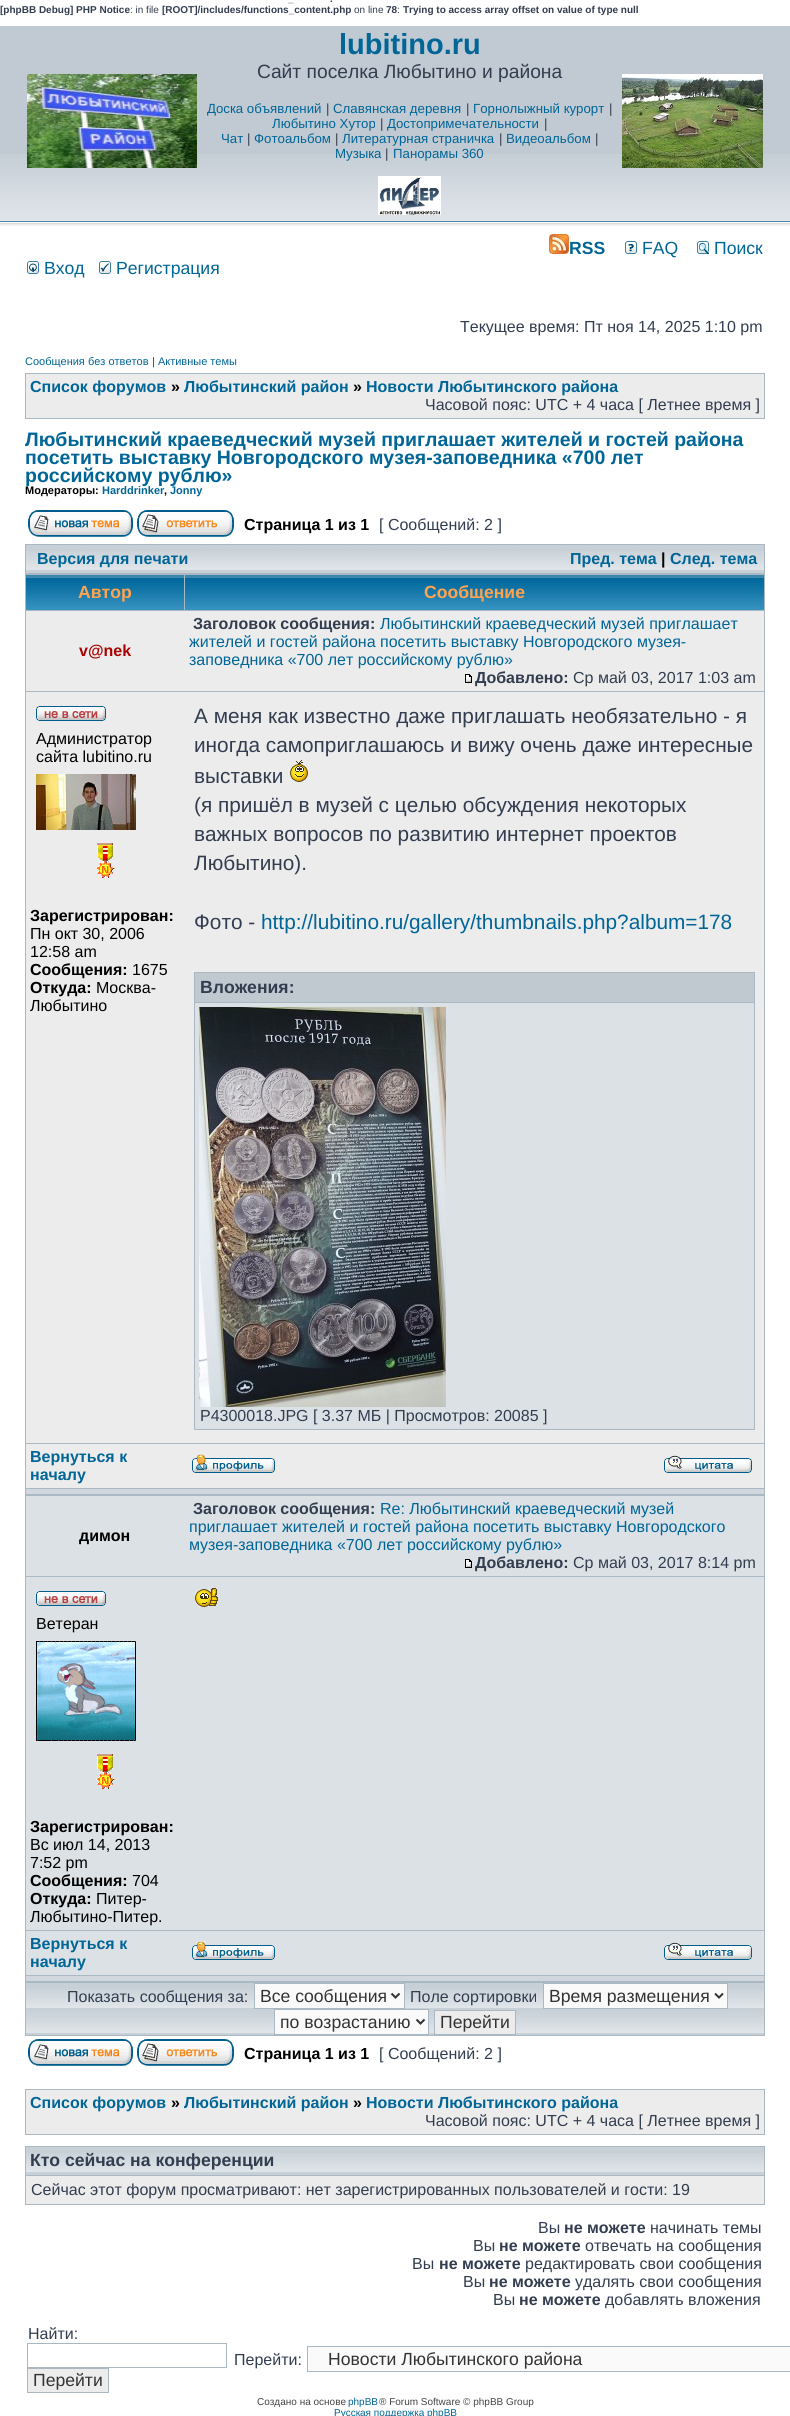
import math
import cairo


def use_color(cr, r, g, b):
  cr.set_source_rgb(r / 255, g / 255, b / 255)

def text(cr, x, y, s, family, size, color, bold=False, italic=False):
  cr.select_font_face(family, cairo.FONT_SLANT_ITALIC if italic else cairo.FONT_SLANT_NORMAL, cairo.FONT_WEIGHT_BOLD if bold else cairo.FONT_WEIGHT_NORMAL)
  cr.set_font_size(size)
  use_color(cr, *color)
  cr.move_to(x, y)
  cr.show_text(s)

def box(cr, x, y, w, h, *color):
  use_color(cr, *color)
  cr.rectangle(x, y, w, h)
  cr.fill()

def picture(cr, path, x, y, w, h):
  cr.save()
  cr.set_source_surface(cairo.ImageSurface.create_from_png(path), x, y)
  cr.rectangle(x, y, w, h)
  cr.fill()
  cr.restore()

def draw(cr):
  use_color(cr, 255, 255, 255)
  cr.paint()
  box(cr, 0, 26, 790, 128, 193, 202, 210)
  picture(cr, "img_01.png", 0, 154, 790, 78)
  picture(cr, "img_02.png", 27, 74, 170, 94)
  picture(cr, "img_03.png", 378, 176, 63, 39)
  picture(cr, "img_04.png", 622, 74, 141, 94)
  picture(cr, "img_05.png", 549, 234, 20, 20)
  picture(cr, "img_06.png", 625, 241, 12, 13)
  picture(cr, "img_07.png", 697, 241, 12, 13)
  picture(cr, "img_08.png", 27, 261, 12, 13)
  picture(cr, "img_09.png", 99, 261, 12, 13)
  box(cr, 25, 373, 740, 46, 169, 184, 194)
  box(cr, 26, 374, 738, 44, 236, 236, 236)
  picture(cr, "img_10.png", 28, 510, 105, 27)
  picture(cr, "img_11.png", 137, 510, 97, 27)
  box(cr, 25, 544, 740, 1492, 169, 184, 194)
  box(cr, 26, 545, 738, 28, 199, 208, 215)
  picture(cr, "img_12.png", 26, 551, 738, 19)
  picture(cr, "img_13.png", 26, 575, 158, 35)
  picture(cr, "img_14.png", 185, 575, 579, 35)
  box(cr, 26, 611, 738, 80, 236, 236, 236)
  picture(cr, "img_15.png", 465, 674, 7, 9)
  box(cr, 26, 692, 738, 751, 236, 236, 236)
  picture(cr, "img_16.png", 36, 706, 70, 15)
  picture(cr, "img_17.png", 36, 774, 100, 56)
  picture(cr, "img_18.png", 96, 843, 19, 35)
  picture(cr, "img_19.png", 290, 760, 18, 22)
  box(cr, 194, 972, 561, 458, 169, 184, 194)
  box(cr, 195, 973, 559, 29, 192, 200, 208)
  box(cr, 195, 1003, 559, 426, 220, 225, 229)
  picture(cr, "img_20.png", 199, 1007, 247, 400)
  box(cr, 26, 1444, 738, 44, 236, 236, 236)
  picture(cr, "img_21.png", 192, 1454, 83, 19)
  picture(cr, "img_22.png", 664, 1455, 88, 18)
  box(cr, 26, 1489, 738, 5, 209, 215, 220)
  box(cr, 26, 1496, 738, 80, 220, 225, 229)
  picture(cr, "img_23.png", 465, 1559, 7, 9)
  box(cr, 26, 1577, 738, 353, 220, 225, 229)
  picture(cr, "img_24.png", 195, 1588, 23, 19)
  picture(cr, "img_25.png", 36, 1591, 70, 15)
  picture(cr, "img_26.png", 36, 1641, 100, 100)
  picture(cr, "img_27.png", 96, 1754, 19, 35)
  box(cr, 26, 1931, 738, 44, 220, 225, 229)
  picture(cr, "img_28.png", 192, 1941, 83, 19)
  picture(cr, "img_29.png", 664, 1942, 88, 18)
  box(cr, 26, 1976, 738, 5, 209, 215, 220)
  box(cr, 26, 1983, 738, 52, 199, 208, 215)
  picture(cr, "img_30.png", 26, 1989, 738, 44)
  use_color(cr, 250, 250, 250)
  cr.rectangle(254.5, 1983.5, 150, 25)
  cr.fill_preserve()
  use_color(cr, 169, 184, 194)
  cr.set_line_width(1)
  cr.stroke()
  cr.new_path()
  cr.move_to(391.5, 1993.5)
  cr.line_to(395.5, 1997.5)
  cr.line_to(399.5, 1993.5)
  use_color(cr, 51, 51, 51)
  cr.set_line_width(2)
  cr.stroke()
  use_color(cr, 250, 250, 250)
  cr.rectangle(543.5, 1983.5, 184, 25)
  cr.fill_preserve()
  use_color(cr, 169, 184, 194)
  cr.set_line_width(1)
  cr.stroke()
  cr.new_path()
  cr.move_to(715, 1993.5)
  cr.line_to(719, 1997.5)
  cr.line_to(723, 1993.5)
  use_color(cr, 51, 51, 51)
  cr.set_line_width(2)
  cr.stroke()
  use_color(cr, 250, 250, 250)
  cr.rectangle(274.5, 2009.5, 154, 25)
  cr.fill_preserve()
  use_color(cr, 169, 184, 194)
  cr.set_line_width(1)
  cr.stroke()
  cr.new_path()
  cr.move_to(416.5, 2019.5)
  cr.line_to(420.5, 2023.5)
  cr.line_to(424.5, 2019.5)
  use_color(cr, 51, 51, 51)
  cr.set_line_width(2)
  cr.stroke()
  use_color(cr, 236, 236, 236)
  cr.rectangle(434.5, 2010.5, 81, 24)
  cr.fill_preserve()
  use_color(cr, 169, 184, 194)
  cr.set_line_width(1)
  cr.stroke()
  picture(cr, "img_10.png", 28, 2039, 105, 27)
  picture(cr, "img_11.png", 137, 2039, 97, 27)
  box(cr, 25, 2089, 740, 46, 169, 184, 194)
  box(cr, 26, 2090, 738, 44, 236, 236, 236)
  box(cr, 25, 2146, 740, 59, 169, 184, 194)
  box(cr, 26, 2147, 738, 28, 199, 208, 215)
  picture(cr, "img_12.png", 26, 2153, 738, 19)
  box(cr, 26, 2176, 738, 28, 236, 236, 236)
  cr.rectangle(27.5, 2343.5, 199, 24)
  use_color(cr, 169, 184, 194)
  cr.stroke()
  use_color(cr, 236, 236, 236)
  cr.rectangle(27.5, 2368.5, 81, 24)
  cr.fill_preserve()
  use_color(cr, 169, 184, 194)
  cr.stroke()
  use_color(cr, 250, 250, 250)
  cr.rectangle(307.5, 2346.5, 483, 25)
  cr.fill_preserve()
  use_color(cr, 169, 184, 194)
  cr.stroke()
  text(cr, 330, 2, ".", "Liberation Sans", 10, (50, 61, 79), bold=True)
  text(cr, 288, 2, "_", "Liberation Sans", 10, (50, 61, 79), bold=True)
  text(cr, 0, 13, "[phpBB Debug] PHP Notice", "Liberation Sans", 10, (50, 61, 79), bold=True)
  text(cr, 130, 13, ": in file", "Liberation Sans", 10, (50, 61, 79))
  text(cr, 162, 13, "[ROOT]/includes/functions_content.php", "Liberation Sans", 10, (50, 61, 79), bold=True)
  text(cr, 354, 13, "on line", "Liberation Sans", 10, (50, 61, 79))
  text(cr, 386, 13, "78", "Liberation Sans", 10, (50, 61, 79), bold=True)
  text(cr, 397, 13, ":", "Liberation Sans", 10, (50, 61, 79))
  text(cr, 403, 13, "Trying to access array offset on value of type null", "Liberation Sans", 10, (50, 61, 79), bold=True)
  text(cr, 339, 54, "lubitino.ru", "Liberation Sans", 29, (0, 101, 151), bold=True)
  text(cr, 257, 78, "Сайт поселка Любытино и района", "Liberation Sans", 19.25, (50, 61, 79))
  text(cr, 207, 113, "Доска объявлений", "Liberation Sans", 13.25, (0, 101, 151))
  text(cr, 326, 113, "|", "Liberation Sans", 13.25, (50, 61, 79))
  text(cr, 333, 113, "Славянская деревня", "Liberation Sans", 13.25, (0, 101, 151))
  text(cr, 466, 113, "|", "Liberation Sans", 13.25, (50, 61, 79))
  text(cr, 473, 113, "Горнолыжный курорт", "Liberation Sans", 13.25, (0, 101, 151))
  text(cr, 609, 113, "|", "Liberation Sans", 13.25, (50, 61, 79))
  text(cr, 272, 128, "Любытино Хутор", "Liberation Sans", 13.25, (0, 101, 151))
  text(cr, 380, 128, "|", "Liberation Sans", 13.25, (50, 61, 79))
  text(cr, 387, 128, "Достопримечательности", "Liberation Sans", 13.25, (0, 101, 151))
  text(cr, 544, 128, "|", "Liberation Sans", 13.25, (50, 61, 79))
  text(cr, 221, 143, "Чат", "Liberation Sans", 13.25, (0, 101, 151))
  text(cr, 247, 143, "|", "Liberation Sans", 13.25, (50, 61, 79))
  text(cr, 254, 143, "Фотоальбом", "Liberation Sans", 13.25, (0, 101, 151))
  text(cr, 335, 143, "|", "Liberation Sans", 13.25, (50, 61, 79))
  text(cr, 342, 143, "Литературная страничка", "Liberation Sans", 13.25, (0, 101, 151))
  text(cr, 499, 143, "|", "Liberation Sans", 13.25, (50, 61, 79))
  text(cr, 506, 143, "Видеоальбом", "Liberation Sans", 13.25, (0, 101, 151))
  text(cr, 595, 143, "|", "Liberation Sans", 13.25, (50, 61, 79))
  text(cr, 335, 158, "Музыка", "Liberation Sans", 13.25, (0, 101, 151))
  text(cr, 385, 158, "|", "Liberation Sans", 13.25, (50, 61, 79))
  text(cr, 393, 158, "Панорамы 360", "Liberation Sans", 13.25, (0, 101, 151))
  text(cr, 569, 254, "RSS", "Liberation Sans", 17.6, (0, 101, 151), bold=True)
  text(cr, 642, 254, "FAQ", "Liberation Sans", 17.6, (0, 101, 151))
  text(cr, 714, 254, "Поиск", "Liberation Sans", 17.6, (0, 101, 151))
  text(cr, 44, 274, "Вход", "Liberation Sans", 17.6, (0, 101, 151))
  text(cr, 116, 274, "Регистрация", "Liberation Sans", 17.6, (0, 101, 151))
  text(cr, 460, 332, "Текущее время: Пт ноя 14, 2025 1:10 pm", "Liberation Sans", 16, (50, 61, 79))
  text(cr, 25, 365, "Сообщения без ответов", "Liberation Sans", 11, (0, 101, 151))
  text(cr, 152, 365, "|", "Liberation Sans", 11, (50, 61, 79))
  text(cr, 158, 365, "Активные темы", "Liberation Sans", 11, (0, 101, 151))
  text(cr, 30, 392, "Список форумов", "Liberation Sans", 16, (0, 101, 151), bold=True)
  text(cr, 171, 392, "»", "Liberation Sans", 16, (0, 0, 0), bold=True)
  text(cr, 184, 392, "Любытинский район", "Liberation Sans", 16, (0, 101, 151), bold=True)
  text(cr, 353, 392, "»", "Liberation Sans", 16, (0, 0, 0), bold=True)
  text(cr, 366, 392, "Новости Любытинского района", "Liberation Sans", 16, (0, 101, 151), bold=True)
  text(cr, 425, 410, "Часовой пояс: UTC + 4 часа [ Летнее время ]", "Liberation Sans", 16, (50, 61, 79))
  text(cr, 25, 446, "Любытинский краеведческий музей приглашает жителей и гостей района", "Liberation Sans", 19.5, (0, 101, 151), bold=True)
  text(cr, 25, 464, "посетить выставку Новгородского музея-заповедника «700 лет", "Liberation Sans", 19.5, (0, 101, 151), bold=True)
  text(cr, 25, 482, "российскому рублю»", "Liberation Sans", 19.5, (0, 101, 151), bold=True)
  text(cr, 25, 494, "Модераторы:", "Liberation Sans", 11, (0, 0, 0), bold=True)
  text(cr, 102, 494, "Harddrinker", "Liberation Sans", 11, (0, 101, 151), bold=True)
  text(cr, 164, 494, ",", "Liberation Sans", 11, (0, 0, 0), bold=True)
  text(cr, 170, 494, "Jonny", "Liberation Sans", 11, (0, 101, 151), bold=True)
  text(cr, 244, 530, "Страница 1 из 1", "Liberation Sans", 16, (0, 0, 0), bold=True)
  text(cr, 379, 530, "[ Сообщений: 2 ]", "Liberation Sans", 16, (50, 61, 79))
  text(cr, 37, 564, "Версия для печати", "Liberation Sans", 16, (0, 101, 151), bold=True)
  text(cr, 570, 564, "Пред. тема", "Liberation Sans", 16, (0, 101, 151), bold=True)
  text(cr, 661, 564, "|", "Liberation Sans", 16, (0, 0, 0), bold=True)
  text(cr, 670, 564, "След. тема", "Liberation Sans", 16, (0, 101, 151), bold=True)
  text(cr, 78, 598, "Автор", "Liberation Sans", 17.6, (255, 163, 79), bold=True)
  text(cr, 424, 598, "Сообщение", "Liberation Sans", 17.6, (255, 163, 79), bold=True)
  text(cr, 79, 656, "v@nek", "Liberation Sans", 16, (170, 0, 0), bold=True)
  text(cr, 193, 629, "Заголовок сообщения:", "Liberation Sans", 16, (50, 61, 79), bold=True)
  text(cr, 380, 629, "Любытинский краеведческий музей приглашает", "Liberation Sans", 16, (0, 101, 151))
  text(cr, 189, 647, "жителей и гостей района посетить выставку Новгородского музея-", "Liberation Sans", 16, (0, 101, 151))
  text(cr, 189, 665, "заповедника «700 лет российскому рублю»", "Liberation Sans", 16, (0, 101, 151))
  text(cr, 475, 683, "Добавлено:", "Liberation Sans", 16, (50, 61, 79), bold=True)
  text(cr, 573, 683, "Ср май 03, 2017 1:03 am", "Liberation Sans", 16, (50, 61, 79))
  text(cr, 36, 744, "Администратор", "Liberation Sans", 16, (0, 0, 0))
  text(cr, 36, 762, "сайта lubitino.ru", "Liberation Sans", 16, (0, 0, 0))
  text(cr, 30, 921, "Зарегистрирован:", "Liberation Sans", 16, (0, 0, 0), bold=True)
  text(cr, 30, 939, "Пн окт 30, 2006", "Liberation Sans", 16, (0, 0, 0))
  text(cr, 30, 957, "12:58 am", "Liberation Sans", 16, (0, 0, 0))
  text(cr, 30, 975, "Сообщения:", "Liberation Sans", 16, (0, 0, 0), bold=True)
  text(cr, 132, 975, "1675", "Liberation Sans", 16, (0, 0, 0))
  text(cr, 30, 993, "Откуда:", "Liberation Sans", 16, (0, 0, 0), bold=True)
  text(cr, 96, 993, "Москва-", "Liberation Sans", 16, (0, 0, 0))
  text(cr, 30, 1011, "Любытино", "Liberation Sans", 16, (0, 0, 0))
  text(cr, 194, 723, "А меня как известно даже приглашать необязательно - я", "Liberation Sans", 20.8, (50, 61, 79))
  text(cr, 194, 752, "иногда самоприглашаюсь и вижу очень даже интересные", "Liberation Sans", 20.8, (50, 61, 79))
  text(cr, 194, 783, "выставки", "Liberation Sans", 20.8, (50, 61, 79))
  text(cr, 194, 812, "(я пришёл в музей с целью обсуждения некоторых", "Liberation Sans", 20.8, (50, 61, 79))
  text(cr, 194, 841, "важных вопросов по развитию интернет проектов", "Liberation Sans", 20.8, (50, 61, 79))
  text(cr, 194, 870, "Любытино).", "Liberation Sans", 20.8, (50, 61, 79))
  text(cr, 194, 929, "Фото -", "Liberation Sans", 20.8, (50, 61, 79))
  text(cr, 261, 929, "http://lubitino.ru/gallery/thumbnails.php?album=178", "Liberation Sans", 20.8, (0, 101, 151))
  text(cr, 200, 993, "Вложения:", "Liberation Sans", 17.6, (50, 61, 79), bold=True)
  text(cr, 200, 1421, "P4300018.JPG [ 3.37 МБ | Просмотров: 20085 ]", "Liberation Sans", 16, (50, 61, 79))
  text(cr, 30, 1462, "Вернуться к", "Liberation Sans", 16, (0, 101, 151), bold=True)
  text(cr, 30, 1480, "началу", "Liberation Sans", 16, (0, 101, 151), bold=True)
  text(cr, 79, 1541, "димон", "Liberation Sans", 16, (0, 0, 0), bold=True)
  text(cr, 193, 1514, "Заголовок сообщения:", "Liberation Sans", 16, (50, 61, 79), bold=True)
  text(cr, 380, 1514, "Re: Любытинский краеведческий музей", "Liberation Sans", 16, (0, 101, 151))
  text(cr, 189, 1532, "приглашает жителей и гостей района посетить выставку Новгородского", "Liberation Sans", 16, (0, 101, 151))
  text(cr, 189, 1550, "музея-заповедника «700 лет российскому рублю»", "Liberation Sans", 16, (0, 101, 151))
  text(cr, 475, 1568, "Добавлено:", "Liberation Sans", 16, (50, 61, 79), bold=True)
  text(cr, 573, 1568, "Ср май 03, 2017 8:14 pm", "Liberation Sans", 16, (50, 61, 79))
  text(cr, 36, 1629, "Ветеран", "Liberation Sans", 16, (0, 0, 0))
  text(cr, 30, 1832, "Зарегистрирован:", "Liberation Sans", 16, (0, 0, 0), bold=True)
  text(cr, 30, 1850, "Вс июл 14, 2013", "Liberation Sans", 16, (0, 0, 0))
  text(cr, 30, 1868, "7:52 pm", "Liberation Sans", 16, (0, 0, 0))
  text(cr, 30, 1886, "Сообщения:", "Liberation Sans", 16, (0, 0, 0), bold=True)
  text(cr, 132, 1886, "704", "Liberation Sans", 16, (0, 0, 0))
  text(cr, 30, 1904, "Откуда:", "Liberation Sans", 16, (0, 0, 0), bold=True)
  text(cr, 96, 1904, "Питер-", "Liberation Sans", 16, (0, 0, 0))
  text(cr, 30, 1922, "Любытино-Питер.", "Liberation Sans", 16, (0, 0, 0))
  text(cr, 30, 1949, "Вернуться к", "Liberation Sans", 16, (0, 101, 151), bold=True)
  text(cr, 30, 1967, "началу", "Liberation Sans", 16, (0, 101, 151), bold=True)
  text(cr, 67, 2002, "Показать сообщения за:", "Liberation Sans", 16, (50, 61, 79))
  text(cr, 260, 2002, "Все сообщения", "Liberation Sans", 17.6, (51, 51, 51))
  text(cr, 410, 2002, "Поле сортировки", "Liberation Sans", 16, (50, 61, 79))
  text(cr, 549, 2002, "Время размещения", "Liberation Sans", 17.6, (51, 51, 51))
  text(cr, 280, 2028, "по возрастанию", "Liberation Sans", 17.6, (51, 51, 51))
  text(cr, 440, 2028, "Перейти", "Liberation Sans", 17.6, (51, 51, 51))
  text(cr, 244, 2059, "Страница 1 из 1", "Liberation Sans", 16, (0, 0, 0), bold=True)
  text(cr, 379, 2059, "[ Сообщений: 2 ]", "Liberation Sans", 16, (50, 61, 79))
  text(cr, 30, 2108, "Список форумов", "Liberation Sans", 16, (0, 101, 151), bold=True)
  text(cr, 171, 2108, "»", "Liberation Sans", 16, (0, 0, 0), bold=True)
  text(cr, 184, 2108, "Любытинский район", "Liberation Sans", 16, (0, 101, 151), bold=True)
  text(cr, 353, 2108, "»", "Liberation Sans", 16, (0, 0, 0), bold=True)
  text(cr, 366, 2108, "Новости Любытинского района", "Liberation Sans", 16, (0, 101, 151), bold=True)
  text(cr, 425, 2126, "Часовой пояс: UTC + 4 часа [ Летнее время ]", "Liberation Sans", 16, (50, 61, 79))
  text(cr, 30, 2166, "Кто сейчас на конференции", "Liberation Sans", 17.6, (50, 61, 79), bold=True)
  text(cr, 31, 2195, "Сейчас этот форум просматривают: нет зарегистрированных пользователей и гости: 19", "Liberation Sans", 16, (50, 61, 79))
  text(cr, 538, 2233, "Вы", "Liberation Sans", 16, (50, 61, 79))
  text(cr, 564, 2233, "не можете", "Liberation Sans", 16, (50, 61, 79), bold=True)
  text(cr, 650, 2233, "начинать темы", "Liberation Sans", 16, (50, 61, 79))
  text(cr, 473, 2251, "Вы", "Liberation Sans", 16, (50, 61, 79))
  text(cr, 499, 2251, "не можете", "Liberation Sans", 16, (50, 61, 79), bold=True)
  text(cr, 585, 2251, "отвечать на сообщения", "Liberation Sans", 16, (50, 61, 79))
  text(cr, 412, 2269, "Вы", "Liberation Sans", 16, (50, 61, 79))
  text(cr, 439, 2269, "не можете", "Liberation Sans", 16, (50, 61, 79), bold=True)
  text(cr, 525, 2269, "редактировать свои сообщения", "Liberation Sans", 16, (50, 61, 79))
  text(cr, 463, 2287, "Вы", "Liberation Sans", 16, (50, 61, 79))
  text(cr, 489, 2287, "не можете", "Liberation Sans", 16, (50, 61, 79), bold=True)
  text(cr, 575, 2287, "удалять свои сообщения", "Liberation Sans", 16, (50, 61, 79))
  text(cr, 493, 2305, "Вы", "Liberation Sans", 16, (50, 61, 79))
  text(cr, 519, 2305, "не можете", "Liberation Sans", 16, (50, 61, 79), bold=True)
  text(cr, 605, 2305, "добавлять вложения", "Liberation Sans", 16, (50, 61, 79))
  text(cr, 28, 2339, "Найти:", "Liberation Sans", 16, (50, 61, 79))
  text(cr, 33, 2386, "Перейти", "Liberation Sans", 17.6, (51, 51, 51))
  text(cr, 234, 2365, "Перейти:", "Liberation Sans", 16, (50, 61, 79))
  text(cr, 328, 2365, "Новости Любытинского района", "Liberation Sans", 17.6, (51, 51, 51))
  text(cr, 257, 2405, "Создано на основе", "Liberation Sans", 10, (68, 68, 68))
  text(cr, 348, 2405, "phpBB", "Liberation Sans", 10, (0, 101, 151))
  text(cr, 379, 2405, "® Forum Software © phpBB Group", "Liberation Sans", 10, (68, 68, 68))
  text(cr, 334, 2416, "Русская поддержка phpBB", "Liberation Sans", 10, (0, 101, 151))


surface = cairo.ImageSurface(cairo.FORMAT_RGB24, 790, 2416)
cr = cairo.Context(surface)
options = cairo.FontOptions()
options.set_hint_metrics(cairo.HINT_METRICS_OFF)
options.set_hint_style(cairo.HINT_STYLE_NONE)
cr.set_font_options(options)
cr.set_miter_limit(4)
draw(cr)
surface.write_to_png("out.png")
